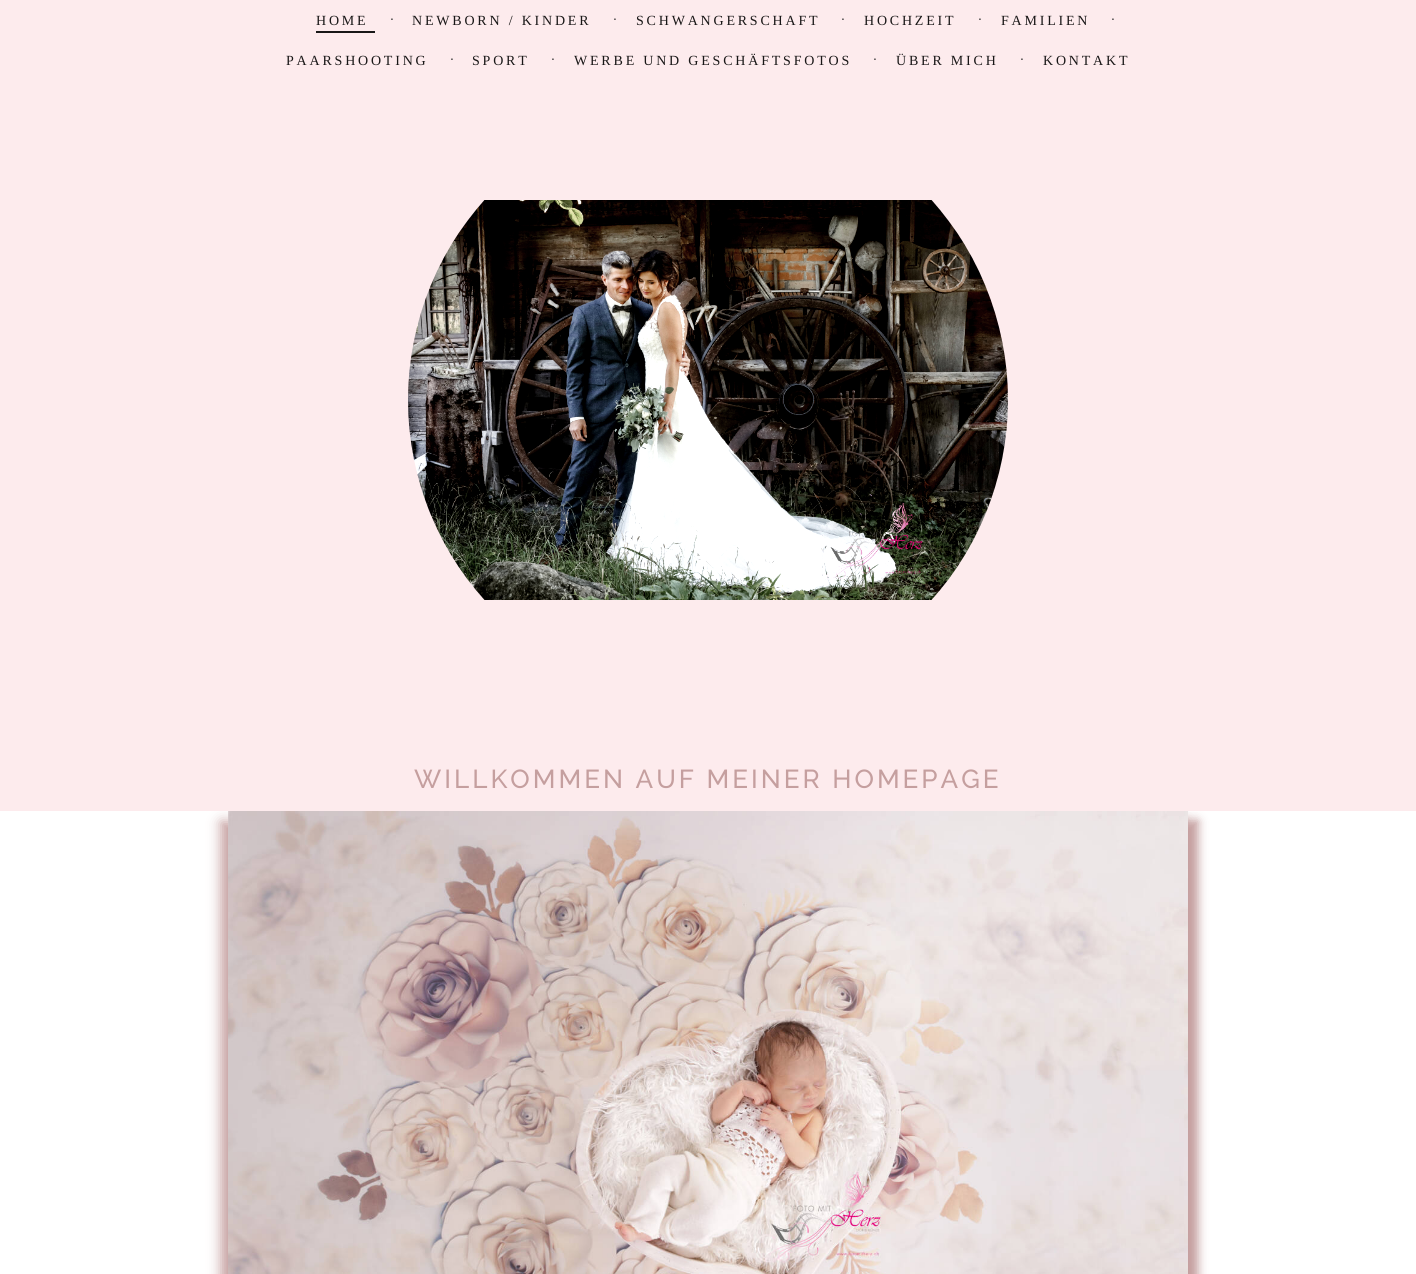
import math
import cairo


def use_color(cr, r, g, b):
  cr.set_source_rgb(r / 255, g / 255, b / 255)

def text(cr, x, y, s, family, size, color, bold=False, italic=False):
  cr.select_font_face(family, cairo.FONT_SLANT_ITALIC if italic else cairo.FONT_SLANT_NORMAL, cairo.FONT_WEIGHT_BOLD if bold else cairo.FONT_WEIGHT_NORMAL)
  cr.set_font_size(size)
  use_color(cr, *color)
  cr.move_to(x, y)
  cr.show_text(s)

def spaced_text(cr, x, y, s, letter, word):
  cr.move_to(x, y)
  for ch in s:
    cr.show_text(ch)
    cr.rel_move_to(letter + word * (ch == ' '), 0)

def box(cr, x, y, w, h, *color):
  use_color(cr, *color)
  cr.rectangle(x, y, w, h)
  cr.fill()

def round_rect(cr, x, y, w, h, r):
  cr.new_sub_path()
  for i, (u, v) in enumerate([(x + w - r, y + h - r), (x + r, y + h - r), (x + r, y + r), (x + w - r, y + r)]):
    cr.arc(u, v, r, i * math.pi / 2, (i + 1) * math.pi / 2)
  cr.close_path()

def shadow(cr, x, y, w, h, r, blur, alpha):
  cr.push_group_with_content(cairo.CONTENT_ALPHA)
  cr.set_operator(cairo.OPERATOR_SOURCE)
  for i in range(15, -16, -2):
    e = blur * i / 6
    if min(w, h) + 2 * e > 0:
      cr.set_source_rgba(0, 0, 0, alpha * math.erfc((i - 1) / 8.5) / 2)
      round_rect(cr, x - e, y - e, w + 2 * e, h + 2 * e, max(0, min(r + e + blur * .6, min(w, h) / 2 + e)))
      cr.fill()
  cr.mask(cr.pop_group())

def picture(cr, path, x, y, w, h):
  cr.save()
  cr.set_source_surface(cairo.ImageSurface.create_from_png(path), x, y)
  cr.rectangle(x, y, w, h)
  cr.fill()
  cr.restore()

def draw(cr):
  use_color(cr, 255, 255, 255)
  cr.paint()
  use_color(cr, 197, 159, 159)
  shadow(cr, 221, 822, 966, 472, 0, 6.5, 1)
  shadow(cr, 238, 821, 960, 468, 0, 5, 1)
  box(cr, 0, 0, 1416, 811, 253, 235, 237)
  box(cr, 316, 31, 59, 2, 25, 23, 23)
  picture(cr, "img_01.png", 408, 200, 600, 400)
  picture(cr, "img_02.png", 228, 811, 960, 463)
  cr.select_font_face("Liberation Serif")
  cr.set_font_size(14)
  spaced_text(cr, 316, 25, "HOME", 2.8, 0)
  text(cr, 390, 20, ".", "Liberation Sans", 14, (51, 51, 51))
  cr.select_font_face("Liberation Serif")
  use_color(cr, 25, 23, 23)
  spaced_text(cr, 412, 25, "NEWBORN / KINDER", 2.8, 0)
  text(cr, 613, 20, ".", "Liberation Sans", 14, (51, 51, 51))
  cr.select_font_face("Liberation Serif")
  use_color(cr, 25, 23, 23)
  spaced_text(cr, 636, 25, "SCHWANGERSCHAFT", 2.8, 0)
  text(cr, 841, 20, ".", "Liberation Sans", 14, (51, 51, 51))
  cr.select_font_face("Liberation Serif")
  use_color(cr, 25, 23, 23)
  spaced_text(cr, 864, 25, "HOCHZEIT", 2.8, 0)
  text(cr, 978, 20, ".", "Liberation Sans", 14, (51, 51, 51))
  cr.select_font_face("Liberation Serif")
  use_color(cr, 25, 23, 23)
  spaced_text(cr, 1001, 25, "FAMILIEN", 2.8, 0)
  text(cr, 1111, 20, ".", "Liberation Sans", 14, (51, 51, 51))
  cr.select_font_face("Liberation Serif")
  use_color(cr, 25, 23, 23)
  spaced_text(cr, 286, 65, "PAARSHOOTING", 2.8, 0)
  text(cr, 450, 60, ".", "Liberation Sans", 14, (51, 51, 51))
  cr.select_font_face("Liberation Serif")
  use_color(cr, 25, 23, 23)
  spaced_text(cr, 472, 65, "SPORT", 2.8, 0)
  text(cr, 551, 60, ".", "Liberation Sans", 14, (51, 51, 51))
  cr.select_font_face("Liberation Serif")
  use_color(cr, 25, 23, 23)
  spaced_text(cr, 574, 65, "WERBE UND GESCHÄFTSFOTOS", 2.8, 0)
  text(cr, 873, 60, ".", "Liberation Sans", 14, (51, 51, 51))
  cr.select_font_face("Liberation Serif")
  use_color(cr, 25, 23, 23)
  spaced_text(cr, 896, 65, "ÜBER MICH", 2.8, 0)
  text(cr, 1020, 60, ".", "Liberation Sans", 14, (51, 51, 51))
  cr.select_font_face("Liberation Serif")
  use_color(cr, 25, 23, 23)
  spaced_text(cr, 1043, 65, "KONTAKT", 2.8, 0)
  cr.select_font_face("Raleway Medium")
  cr.set_font_size(26)
  use_color(cr, 197, 159, 159)
  spaced_text(cr, 414, 788, "WILLKOMMEN AUF MEINER HOMEPAGE", 3, 0)


surface = cairo.ImageSurface(cairo.FORMAT_RGB24, 1416, 1274)
cr = cairo.Context(surface)
options = cairo.FontOptions()
options.set_hint_metrics(cairo.HINT_METRICS_OFF)
options.set_hint_style(cairo.HINT_STYLE_NONE)
cr.set_font_options(options)
cr.set_miter_limit(4)
draw(cr)
surface.write_to_png("out.png")
